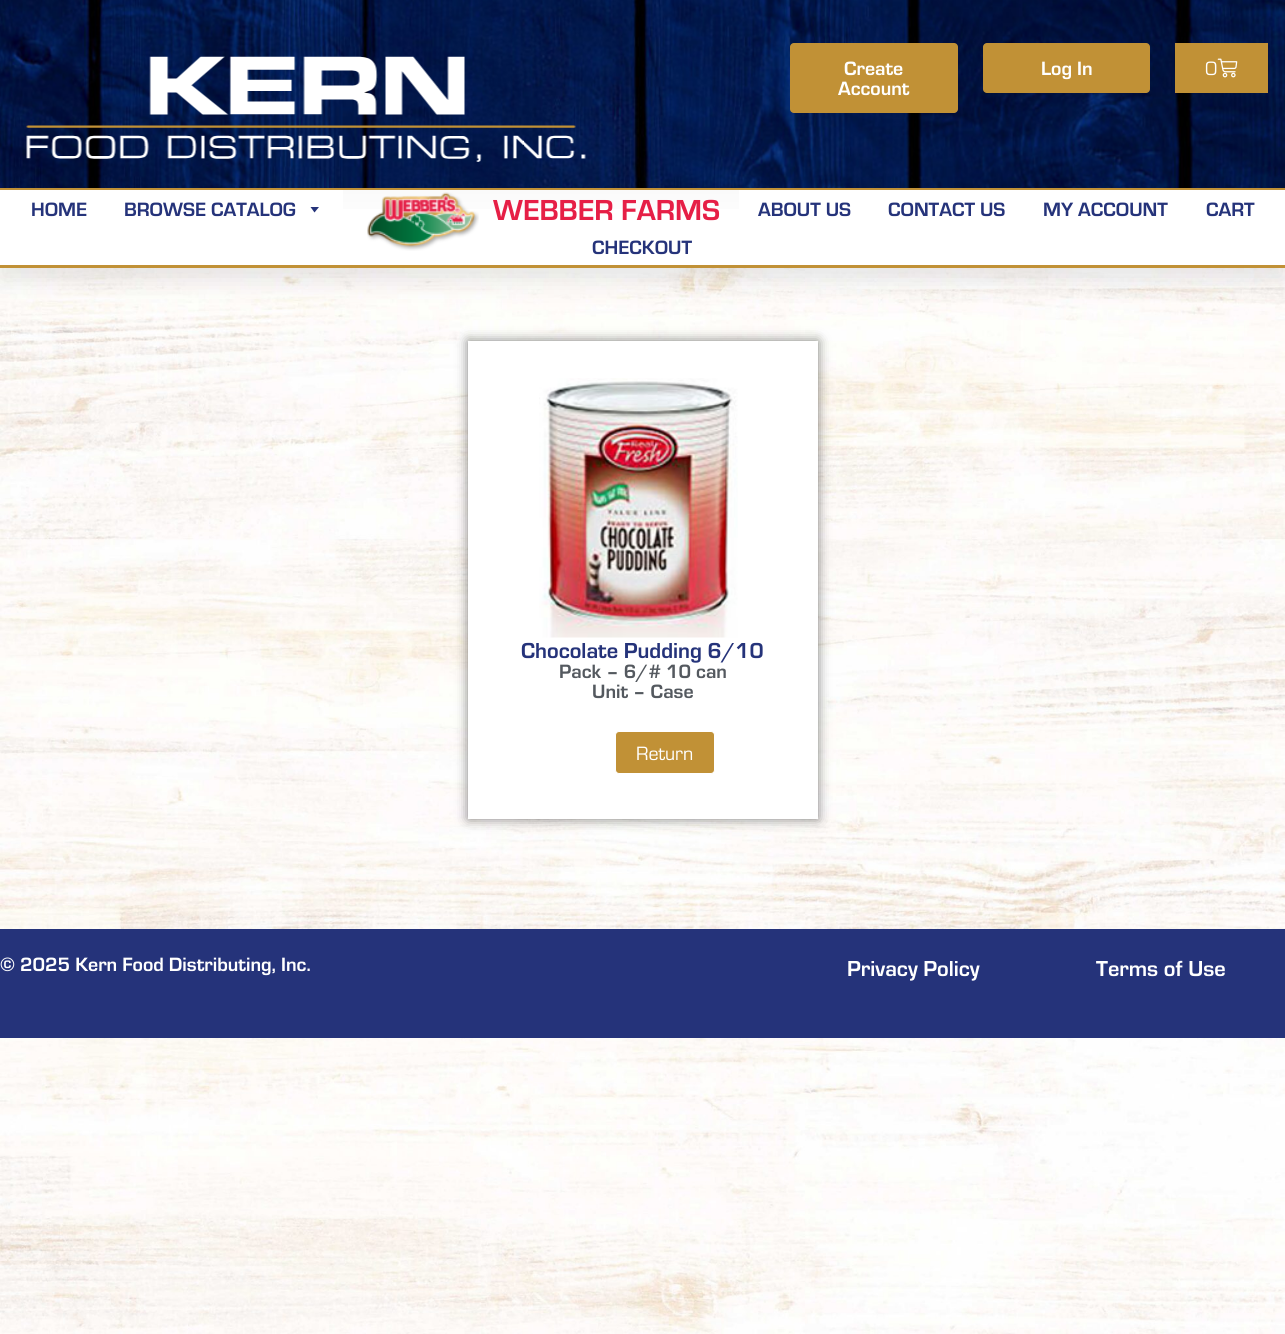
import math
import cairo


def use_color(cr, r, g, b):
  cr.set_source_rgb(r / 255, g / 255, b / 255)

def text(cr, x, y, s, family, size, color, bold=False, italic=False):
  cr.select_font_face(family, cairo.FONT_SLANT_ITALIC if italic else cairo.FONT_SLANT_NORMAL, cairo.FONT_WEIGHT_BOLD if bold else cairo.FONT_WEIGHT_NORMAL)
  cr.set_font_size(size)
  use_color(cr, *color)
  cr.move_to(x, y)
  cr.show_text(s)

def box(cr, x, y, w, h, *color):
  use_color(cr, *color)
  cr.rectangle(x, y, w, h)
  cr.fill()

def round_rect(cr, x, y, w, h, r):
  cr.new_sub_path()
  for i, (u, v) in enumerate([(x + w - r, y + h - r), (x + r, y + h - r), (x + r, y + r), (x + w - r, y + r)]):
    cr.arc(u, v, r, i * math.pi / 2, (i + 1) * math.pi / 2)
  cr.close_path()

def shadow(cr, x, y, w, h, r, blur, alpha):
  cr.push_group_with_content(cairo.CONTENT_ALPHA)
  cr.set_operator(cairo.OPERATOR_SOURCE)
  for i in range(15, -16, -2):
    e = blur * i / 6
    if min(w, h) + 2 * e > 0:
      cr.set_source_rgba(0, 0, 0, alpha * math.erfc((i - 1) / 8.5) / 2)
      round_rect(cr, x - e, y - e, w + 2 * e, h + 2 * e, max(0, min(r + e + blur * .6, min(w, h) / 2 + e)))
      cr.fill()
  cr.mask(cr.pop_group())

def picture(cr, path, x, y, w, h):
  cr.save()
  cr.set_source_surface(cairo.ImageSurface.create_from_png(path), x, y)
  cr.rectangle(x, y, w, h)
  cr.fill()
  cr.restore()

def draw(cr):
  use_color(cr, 255, 255, 255)
  cr.paint()
  picture(cr, "img_01.png", 0, 268, 1285, 1066)
  use_color(cr, 0, 0, 0)
  shadow(cr, 0, 13, 1285, 267, 0, 12.5, 0.1)
  picture(cr, "img_02.png", 0, 0, 1285, 188)
  picture(cr, "img_03.png", 26, 56, 560, 106)
  use_color(cr, 193, 145, 54)
  round_rect(cr, 790, 43, 168, 70, 4)
  cr.fill()
  round_rect(cr, 983, 43, 167, 50, 4)
  cr.fill()
  box(cr, 1175, 43, 93, 50, 193, 145, 54)
  picture(cr, "img_04.png", 1217, 58, 21, 20)
  box(cr, 0, 188, 1285, 2, 193, 145, 54)
  box(cr, 0, 265, 1285, 3, 193, 145, 54)
  box(cr, 0, 190, 1285, 75, 255, 255, 255)
  use_color(cr, 37, 51, 122)
  cr.new_path()
  cr.move_to(319, 207)
  cr.line_to(314.5, 212.5)
  cr.line_to(310.5, 207)
  cr.close_path()
  cr.fill()
  gradient = cairo.LinearGradient(541, 190, 541, 228)
  gradient.add_color_stop_rgba(0, 0.98, 0.98, 0.98, 1)
  gradient.add_color_stop_rgba(1, 1, 1, 1, 1)
  cr.set_source(gradient)
  cr.rectangle(343, 190, 396, 19)
  cr.fill()
  picture(cr, "img_05.png", 367, 192, 112, 59)
  use_color(cr, 0, 0, 0)
  shadow(cr, 468, 341, 350, 478, 0, 6, 0.5)
  box(cr, 468, 341, 350, 478, 255, 255, 255)
  picture(cr, "img_06.png", 539, 378, 199, 260)
  use_color(cr, 193, 145, 54)
  round_rect(cr, 615.5, 731.5, 99, 42, 3.5)
  cr.fill_preserve()
  use_color(cr, 255, 255, 255)
  cr.set_line_width(1)
  cr.stroke()
  box(cr, 0, 929, 1285, 109, 37, 51, 122)
  text(cr, 844, 75, "Create", "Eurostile", 20, (255, 255, 255), bold=True)
  text(cr, 838, 95, "Account", "Eurostile", 20, (255, 255, 255), bold=True)
  text(cr, 1041, 75, "Log In", "Eurostile", 20, (255, 255, 255), bold=True)
  text(cr, 1205, 75, "0", "Eurostile", 20, (255, 255, 255))
  text(cr, 31, 216, "HOME", "Eurostile", 20, (37, 51, 122), bold=True)
  text(cr, 124, 216, "BROWSE CATALOG", "Eurostile", 20, (37, 51, 122), bold=True)
  text(cr, 493, 220, "WEBBER FARMS", "Eurostile", 30, (230, 31, 70), bold=True)
  text(cr, 758, 216, "ABOUT US", "Eurostile", 20, (37, 51, 122), bold=True)
  text(cr, 888, 216, "CONTACT US", "Eurostile", 20, (37, 51, 122), bold=True)
  text(cr, 1043, 216, "MY ACCOUNT", "Eurostile", 20, (37, 51, 122), bold=True)
  text(cr, 1206, 216, "CART", "Eurostile", 20, (37, 51, 122), bold=True)
  text(cr, 592, 254, "CHECKOUT", "Eurostile", 20, (37, 51, 122), bold=True)
  text(cr, 521, 658, "Chocolate Pudding 6/10", "Eurostile", 22.5, (37, 51, 122), bold=True)
  text(cr, 559, 678, "Pack – 6/# 10 can", "Eurostile", 20, (84, 89, 95), bold=True)
  text(cr, 592, 698, "Unit – Case", "Eurostile", 20, (84, 89, 95), bold=True)
  text(cr, 636, 760, "Return", "Eurostile", 20, (255, 255, 255))
  text(cr, 0, 971, "© 2025 Kern Food Distributing, Inc.", "Eurostile", 20, (255, 255, 255), bold=True)
  text(cr, 847, 976, "Privacy Policy", "Eurostile", 22.5, (255, 255, 255), bold=True)
  text(cr, 1096, 976, "Terms of Use", "Eurostile", 22.5, (255, 255, 255), bold=True)


surface = cairo.ImageSurface(cairo.FORMAT_RGB24, 1285, 1334)
cr = cairo.Context(surface)
options = cairo.FontOptions()
options.set_hint_metrics(cairo.HINT_METRICS_OFF)
options.set_hint_style(cairo.HINT_STYLE_NONE)
cr.set_font_options(options)
cr.set_miter_limit(4)
draw(cr)
surface.write_to_png("out.png")
